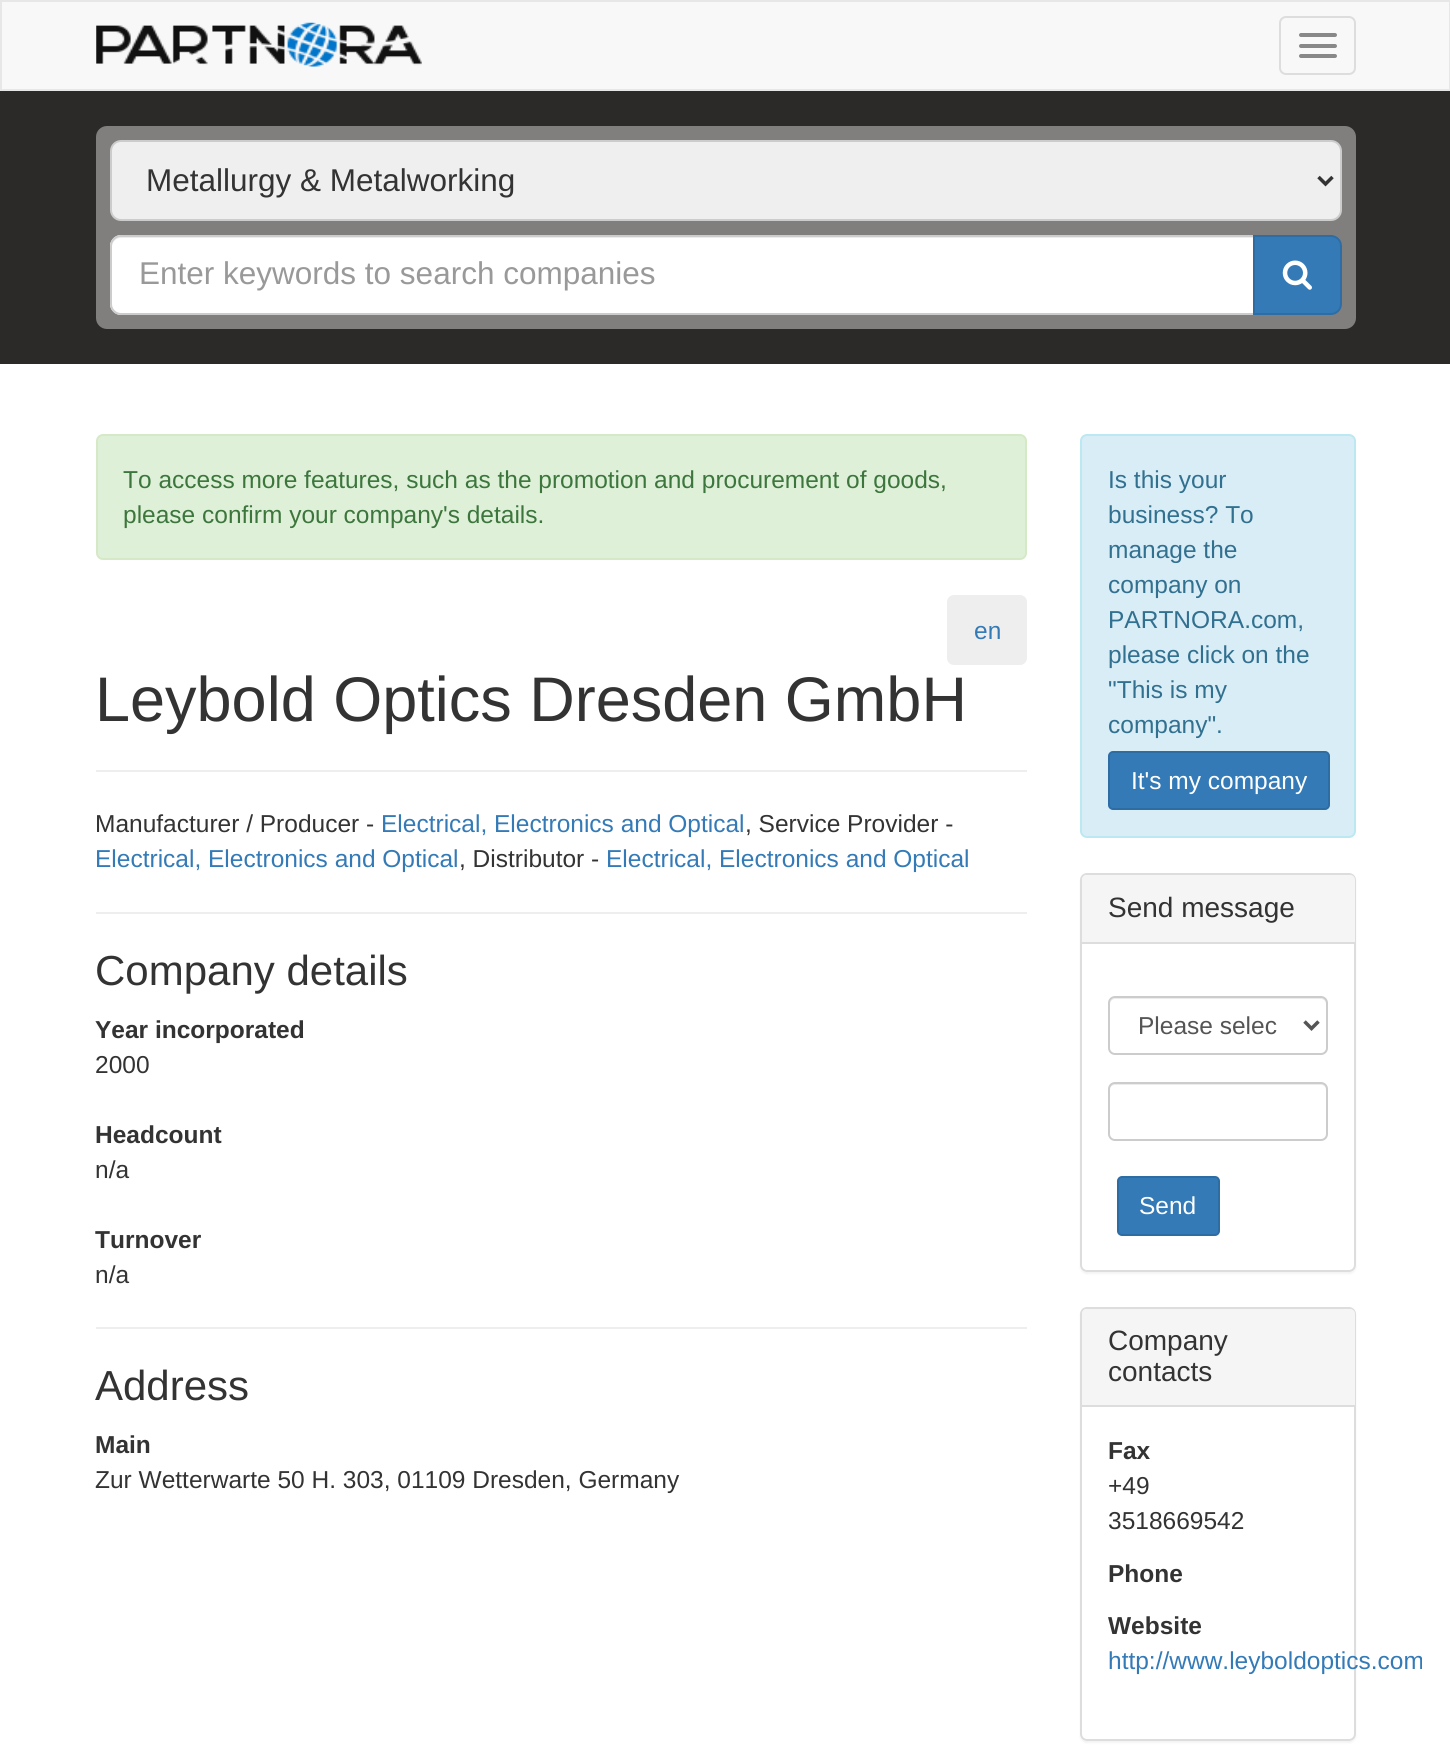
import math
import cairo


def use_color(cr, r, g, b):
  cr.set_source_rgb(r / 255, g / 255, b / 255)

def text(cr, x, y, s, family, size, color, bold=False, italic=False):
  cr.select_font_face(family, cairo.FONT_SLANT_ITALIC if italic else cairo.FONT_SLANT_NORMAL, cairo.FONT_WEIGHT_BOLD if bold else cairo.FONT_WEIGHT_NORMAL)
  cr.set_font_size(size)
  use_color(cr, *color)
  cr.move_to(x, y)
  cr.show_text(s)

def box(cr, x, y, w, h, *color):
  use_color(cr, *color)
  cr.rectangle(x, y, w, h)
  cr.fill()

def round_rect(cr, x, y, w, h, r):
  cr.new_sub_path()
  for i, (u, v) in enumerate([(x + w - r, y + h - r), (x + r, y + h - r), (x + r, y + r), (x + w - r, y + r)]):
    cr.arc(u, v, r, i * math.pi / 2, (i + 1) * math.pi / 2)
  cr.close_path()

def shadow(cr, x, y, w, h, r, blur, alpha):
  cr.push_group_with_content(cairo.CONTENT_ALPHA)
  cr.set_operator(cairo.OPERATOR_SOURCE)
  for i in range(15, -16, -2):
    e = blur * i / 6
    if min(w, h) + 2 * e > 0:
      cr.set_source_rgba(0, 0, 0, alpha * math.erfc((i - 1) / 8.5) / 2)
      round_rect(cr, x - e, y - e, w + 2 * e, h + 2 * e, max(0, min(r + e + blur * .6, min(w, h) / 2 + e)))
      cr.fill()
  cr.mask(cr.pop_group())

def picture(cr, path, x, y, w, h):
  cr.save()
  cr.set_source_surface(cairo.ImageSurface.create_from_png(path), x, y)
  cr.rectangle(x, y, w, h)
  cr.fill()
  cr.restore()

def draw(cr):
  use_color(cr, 43, 42, 40)
  cr.paint()
  use_color(cr, 248, 248, 248)
  cr.rectangle(1, 1, 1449, 89)
  cr.fill_preserve()
  use_color(cr, 231, 231, 231)
  cr.stroke()
  picture(cr, "img_01.png", 96, 22, 326, 45)
  round_rect(cr, 1280, 17, 75, 57, 6)
  use_color(cr, 221, 221, 221)
  cr.stroke()
  use_color(cr, 136, 136, 136)
  round_rect(cr, 1299, 33, 38, 4, 2)
  cr.fill()
  round_rect(cr, 1299, 44, 38, 4, 2)
  cr.fill()
  round_rect(cr, 1299, 54, 38, 4, 2)
  cr.fill()
  use_color(cr, 128, 127, 126)
  round_rect(cr, 96, 126, 1260, 203, 11)
  cr.fill()
  use_color(cr, 239, 239, 239)
  round_rect(cr, 111, 141, 1230, 79, 10)
  cr.fill_preserve()
  use_color(cr, 204, 204, 204)
  cr.stroke()
  cr.new_path()
  cr.move_to(1318.5, 177)
  cr.line_to(1325.5, 184)
  cr.line_to(1332.5, 177)
  use_color(cr, 51, 51, 51)
  cr.set_line_width(3.5)
  cr.stroke()
  use_color(cr, 255, 255, 255)
  cr.new_path()
  cr.move_to(121, 235)
  cr.line_to(1255, 235)
  cr.line_to(1255, 315)
  cr.line_to(121, 315)
  cr.curve_to(115, 315, 110, 310, 110, 304)
  cr.line_to(110, 246)
  cr.curve_to(110, 240, 115, 235, 121, 235)
  cr.close_path()
  cr.fill()
  use_color(cr, 236, 236, 236)
  cr.new_path()
  cr.move_to(121, 238)
  cr.line_to(1253, 238)
  cr.line_to(1253, 236)
  cr.line_to(121, 236)
  cr.curve_to(115, 236, 112, 241, 112, 247)
  cr.curve_to(112, 242, 116, 238, 121, 238)
  cr.close_path()
  cr.fill()
  cr.new_path()
  cr.move_to(121, 236)
  cr.line_to(1254, 236)
  cr.line_to(1254, 314)
  cr.line_to(121, 314)
  cr.curve_to(115.5, 314, 111, 309.5, 111, 304)
  cr.line_to(111, 246)
  cr.curve_to(111, 240.5, 115.5, 236, 121, 236)
  cr.close_path()
  use_color(cr, 204, 204, 204)
  cr.set_line_width(2)
  cr.stroke()
  use_color(cr, 51, 122, 183)
  cr.new_path()
  cr.move_to(1254, 236)
  cr.line_to(1331, 236)
  cr.curve_to(1336.5, 236, 1341, 240.5, 1341, 246)
  cr.line_to(1341, 304)
  cr.curve_to(1341, 309.5, 1336.5, 314, 1331, 314)
  cr.line_to(1254, 314)
  cr.close_path()
  cr.fill_preserve()
  use_color(cr, 46, 109, 164)
  cr.stroke()
  picture(cr, "img_02.png", 1282, 260, 30, 30)
  box(cr, 0, 364, 1450, 1394, 255, 255, 255)
  use_color(cr, 223, 240, 216)
  round_rect(cr, 97, 435, 929, 124, 6)
  cr.fill_preserve()
  use_color(cr, 214, 233, 198)
  cr.stroke()
  use_color(cr, 238, 238, 238)
  round_rect(cr, 947, 595, 80, 70, 7)
  cr.fill()
  box(cr, 96, 770, 931, 2, 238, 238, 238)
  box(cr, 96, 912, 931, 2, 238, 238, 238)
  box(cr, 96, 1327, 931, 2, 238, 238, 238)
  use_color(cr, 217, 237, 247)
  round_rect(cr, 1081, 435, 274, 402, 6)
  cr.fill_preserve()
  use_color(cr, 188, 232, 241)
  cr.stroke()
  use_color(cr, 51, 122, 183)
  round_rect(cr, 1109, 752, 220, 57, 4)
  cr.fill_preserve()
  use_color(cr, 46, 109, 164)
  cr.stroke()
  cr.save()
  cr.set_fill_rule(cairo.FILL_RULE_EVEN_ODD)
  cr.new_path()
  cr.move_to(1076, 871)
  cr.line_to(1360, 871)
  cr.line_to(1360, 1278)
  cr.line_to(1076, 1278)
  cr.close_path()
  cr.move_to(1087, 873)
  cr.line_to(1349, 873)
  cr.curve_to(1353, 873, 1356, 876, 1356, 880)
  cr.line_to(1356, 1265)
  cr.curve_to(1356, 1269, 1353, 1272, 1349, 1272)
  cr.line_to(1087, 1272)
  cr.curve_to(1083, 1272, 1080, 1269, 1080, 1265)
  cr.line_to(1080, 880)
  cr.curve_to(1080, 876, 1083, 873, 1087, 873)
  cr.close_path()
  cr.clip()
  use_color(cr, 0, 0, 0)
  shadow(cr, 1080, 875, 276, 399, 7, 1, 0.05)
  cr.restore()
  round_rect(cr, 1081, 874, 274, 397, 6)
  use_color(cr, 221, 221, 221)
  cr.stroke()
  use_color(cr, 245, 245, 245)
  cr.new_path()
  cr.move_to(1087, 875)
  cr.line_to(1350, 875)
  cr.curve_to(1353, 875, 1355, 877, 1355, 880)
  cr.line_to(1355, 943)
  cr.line_to(1082, 943)
  cr.line_to(1082, 880)
  cr.curve_to(1082, 877, 1084, 875, 1087, 875)
  cr.close_path()
  cr.fill()
  box(cr, 1082, 942, 273, 2, 221, 221, 221)
  use_color(cr, 236, 236, 236)
  cr.new_path()
  cr.move_to(1115, 999)
  cr.line_to(1321, 999)
  cr.curve_to(1324, 999, 1326, 1002, 1326, 1004)
  cr.line_to(1326, 1050)
  cr.line_to(1325, 1053)
  cr.curve_to(1326, 1052, 1327, 1050, 1327, 1049)
  cr.line_to(1327, 1003)
  cr.curve_to(1327, 1000, 1325, 998, 1322, 998)
  cr.line_to(1115, 998)
  cr.curve_to(1112, 998, 1110, 1000, 1110, 1003)
  cr.line_to(1110, 1004)
  cr.curve_to(1110, 1002, 1112, 999, 1115, 999)
  cr.close_path()
  cr.fill()
  round_rect(cr, 1109, 997, 218, 57, 6)
  use_color(cr, 204, 204, 204)
  cr.stroke()
  cr.new_path()
  cr.move_to(1304.5, 1021.5)
  cr.line_to(1311.5, 1028.5)
  cr.line_to(1318.5, 1021.5)
  use_color(cr, 85, 85, 85)
  cr.set_line_width(3.5)
  cr.stroke()
  use_color(cr, 236, 236, 236)
  cr.new_path()
  cr.move_to(1115, 1085)
  cr.line_to(1321, 1085)
  cr.curve_to(1324, 1085, 1326, 1087, 1326, 1090)
  cr.line_to(1326, 1137)
  cr.curve_to(1327, 1136, 1327, 1135, 1327, 1134)
  cr.line_to(1327, 1088)
  cr.curve_to(1327, 1085, 1325, 1083, 1322, 1083)
  cr.line_to(1115, 1083)
  cr.curve_to(1112, 1083, 1110, 1085, 1110, 1088)
  cr.line_to(1110, 1090)
  cr.curve_to(1110, 1087, 1112, 1085, 1115, 1085)
  cr.close_path()
  cr.fill()
  round_rect(cr, 1109, 1083, 218, 57, 6)
  use_color(cr, 204, 204, 204)
  cr.set_line_width(2)
  cr.stroke()
  use_color(cr, 51, 122, 183)
  round_rect(cr, 1118, 1177, 101, 58, 4)
  cr.fill_preserve()
  use_color(cr, 46, 109, 164)
  cr.stroke()
  cr.save()
  cr.set_fill_rule(cairo.FILL_RULE_EVEN_ODD)
  cr.new_path()
  cr.move_to(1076, 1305)
  cr.line_to(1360, 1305)
  cr.line_to(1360, 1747)
  cr.line_to(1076, 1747)
  cr.close_path()
  cr.move_to(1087, 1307)
  cr.line_to(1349, 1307)
  cr.curve_to(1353, 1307, 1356, 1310, 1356, 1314)
  cr.line_to(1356, 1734)
  cr.curve_to(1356, 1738, 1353, 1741, 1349, 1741)
  cr.line_to(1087, 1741)
  cr.curve_to(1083, 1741, 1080, 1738, 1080, 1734)
  cr.line_to(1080, 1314)
  cr.curve_to(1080, 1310, 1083, 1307, 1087, 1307)
  cr.close_path()
  cr.clip()
  use_color(cr, 0, 0, 0)
  shadow(cr, 1080, 1309, 276, 434, 7, 1, 0.05)
  cr.restore()
  round_rect(cr, 1081, 1308, 274, 432, 6)
  use_color(cr, 221, 221, 221)
  cr.stroke()
  use_color(cr, 245, 245, 245)
  cr.new_path()
  cr.move_to(1087, 1309)
  cr.line_to(1350, 1309)
  cr.curve_to(1353, 1309, 1355, 1311, 1355, 1314)
  cr.line_to(1355, 1407)
  cr.line_to(1082, 1407)
  cr.line_to(1082, 1314)
  cr.curve_to(1082, 1311, 1084, 1309, 1087, 1309)
  cr.close_path()
  cr.fill()
  box(cr, 1082, 1405, 273, 2, 221, 221, 221)
  text(cr, 146, 191, "Metallurgy & Metalworking", "Liberation Sans", 31.5, (51, 51, 51))
  text(cr, 139, 284, "Enter keywords to search companies", "Liberation Sans", 31.5, (153, 153, 153))
  text(cr, 123, 488, "To access more features, such as the promotion and procurement of goods,", "Liberation Sans", 24.5, (60, 118, 61))
  text(cr, 123, 523, "please confirm your company's details.", "Liberation Sans", 24.5, (60, 118, 61))
  text(cr, 974, 639, "en", "Liberation Sans", 24.5, (51, 122, 183))
  text(cr, 95, 721, "Leybold Optics Dresden GmbH", "Liberation Sans", 63, (51, 51, 51))
  text(cr, 95, 832, "Manufacturer / Producer -", "Liberation Sans", 24.5, (51, 51, 51))
  text(cr, 381, 832, "Electrical, Electronics and Optical", "Liberation Sans", 24.5, (51, 122, 183))
  text(cr, 745, 832, ", Service Provider -", "Liberation Sans", 24.5, (51, 51, 51))
  text(cr, 95, 867, "Electrical, Electronics and Optical", "Liberation Sans", 24.5, (51, 122, 183))
  text(cr, 459, 867, ", Distributor -", "Liberation Sans", 24.5, (51, 51, 51))
  text(cr, 606, 867, "Electrical, Electronics and Optical", "Liberation Sans", 24.5, (51, 122, 183))
  text(cr, 95, 985, "Company details", "Liberation Sans", 42, (51, 51, 51))
  text(cr, 95, 1038, "Year incorporated", "Liberation Sans", 24.5, (51, 51, 51), bold=True)
  text(cr, 95, 1073, "2000", "Liberation Sans", 24.5, (51, 51, 51))
  text(cr, 95, 1143, "Headcount", "Liberation Sans", 24.5, (51, 51, 51), bold=True)
  text(cr, 95, 1178, "n/a", "Liberation Sans", 24.5, (51, 51, 51))
  text(cr, 95, 1248, "Turnover", "Liberation Sans", 24.5, (51, 51, 51), bold=True)
  text(cr, 95, 1283, "n/a", "Liberation Sans", 24.5, (51, 51, 51))
  text(cr, 95, 1400, "Address", "Liberation Sans", 42, (51, 51, 51))
  text(cr, 95, 1453, "Main", "Liberation Sans", 24.5, (51, 51, 51), bold=True)
  text(cr, 95, 1488, "Zur Wetterwarte 50 H. 303, 01109 Dresden, Germany", "Liberation Sans", 24.5, (51, 51, 51))
  text(cr, 1108, 488, "Is this your", "Liberation Sans", 24.5, (49, 112, 143))
  text(cr, 1108, 523, "business? To", "Liberation Sans", 24.5, (49, 112, 143))
  text(cr, 1108, 558, "manage the", "Liberation Sans", 24.5, (49, 112, 143))
  text(cr, 1108, 593, "company on", "Liberation Sans", 24.5, (49, 112, 143))
  text(cr, 1108, 628, "PARTNORA.com,", "Liberation Sans", 24.5, (49, 112, 143))
  text(cr, 1108, 663, "please click on the", "Liberation Sans", 24.5, (49, 112, 143))
  text(cr, 1108, 698, "\"This is my", "Liberation Sans", 24.5, (49, 112, 143))
  text(cr, 1108, 733, "company\".", "Liberation Sans", 24.5, (49, 112, 143))
  text(cr, 1131, 789, "It's my company", "Liberation Sans", 24.5, (255, 255, 255))
  text(cr, 1108, 917, "Send message", "Liberation Sans", 28, (51, 51, 51))
  text(cr, 1138, 1034, "Please selec", "Liberation Sans", 24.5, (85, 85, 85))
  text(cr, 1139, 1214, "Send", "Liberation Sans", 24.5, (255, 255, 255))
  text(cr, 1108, 1350, "Company", "Liberation Sans", 28, (51, 51, 51))
  text(cr, 1108, 1381, "contacts", "Liberation Sans", 28, (51, 51, 51))
  text(cr, 1108, 1459, "Fax", "Liberation Sans", 24.5, (51, 51, 51), bold=True)
  text(cr, 1108, 1494, "+49", "Liberation Sans", 24.5, (51, 51, 51))
  text(cr, 1108, 1529, "3518669542", "Liberation Sans", 24.5, (51, 51, 51))
  text(cr, 1108, 1582, "Phone", "Liberation Sans", 24.5, (51, 51, 51), bold=True)
  text(cr, 1108, 1634, "Website", "Liberation Sans", 24.5, (51, 51, 51), bold=True)
  text(cr, 1108, 1669, "http://www.leyboldoptics.com", "Liberation Sans", 24.5, (51, 122, 183))


surface = cairo.ImageSurface(cairo.FORMAT_RGB24, 1450, 1758)
cr = cairo.Context(surface)
options = cairo.FontOptions()
options.set_hint_metrics(cairo.HINT_METRICS_OFF)
options.set_hint_style(cairo.HINT_STYLE_NONE)
cr.set_font_options(options)
cr.set_miter_limit(4)
draw(cr)
surface.write_to_png("out.png")
